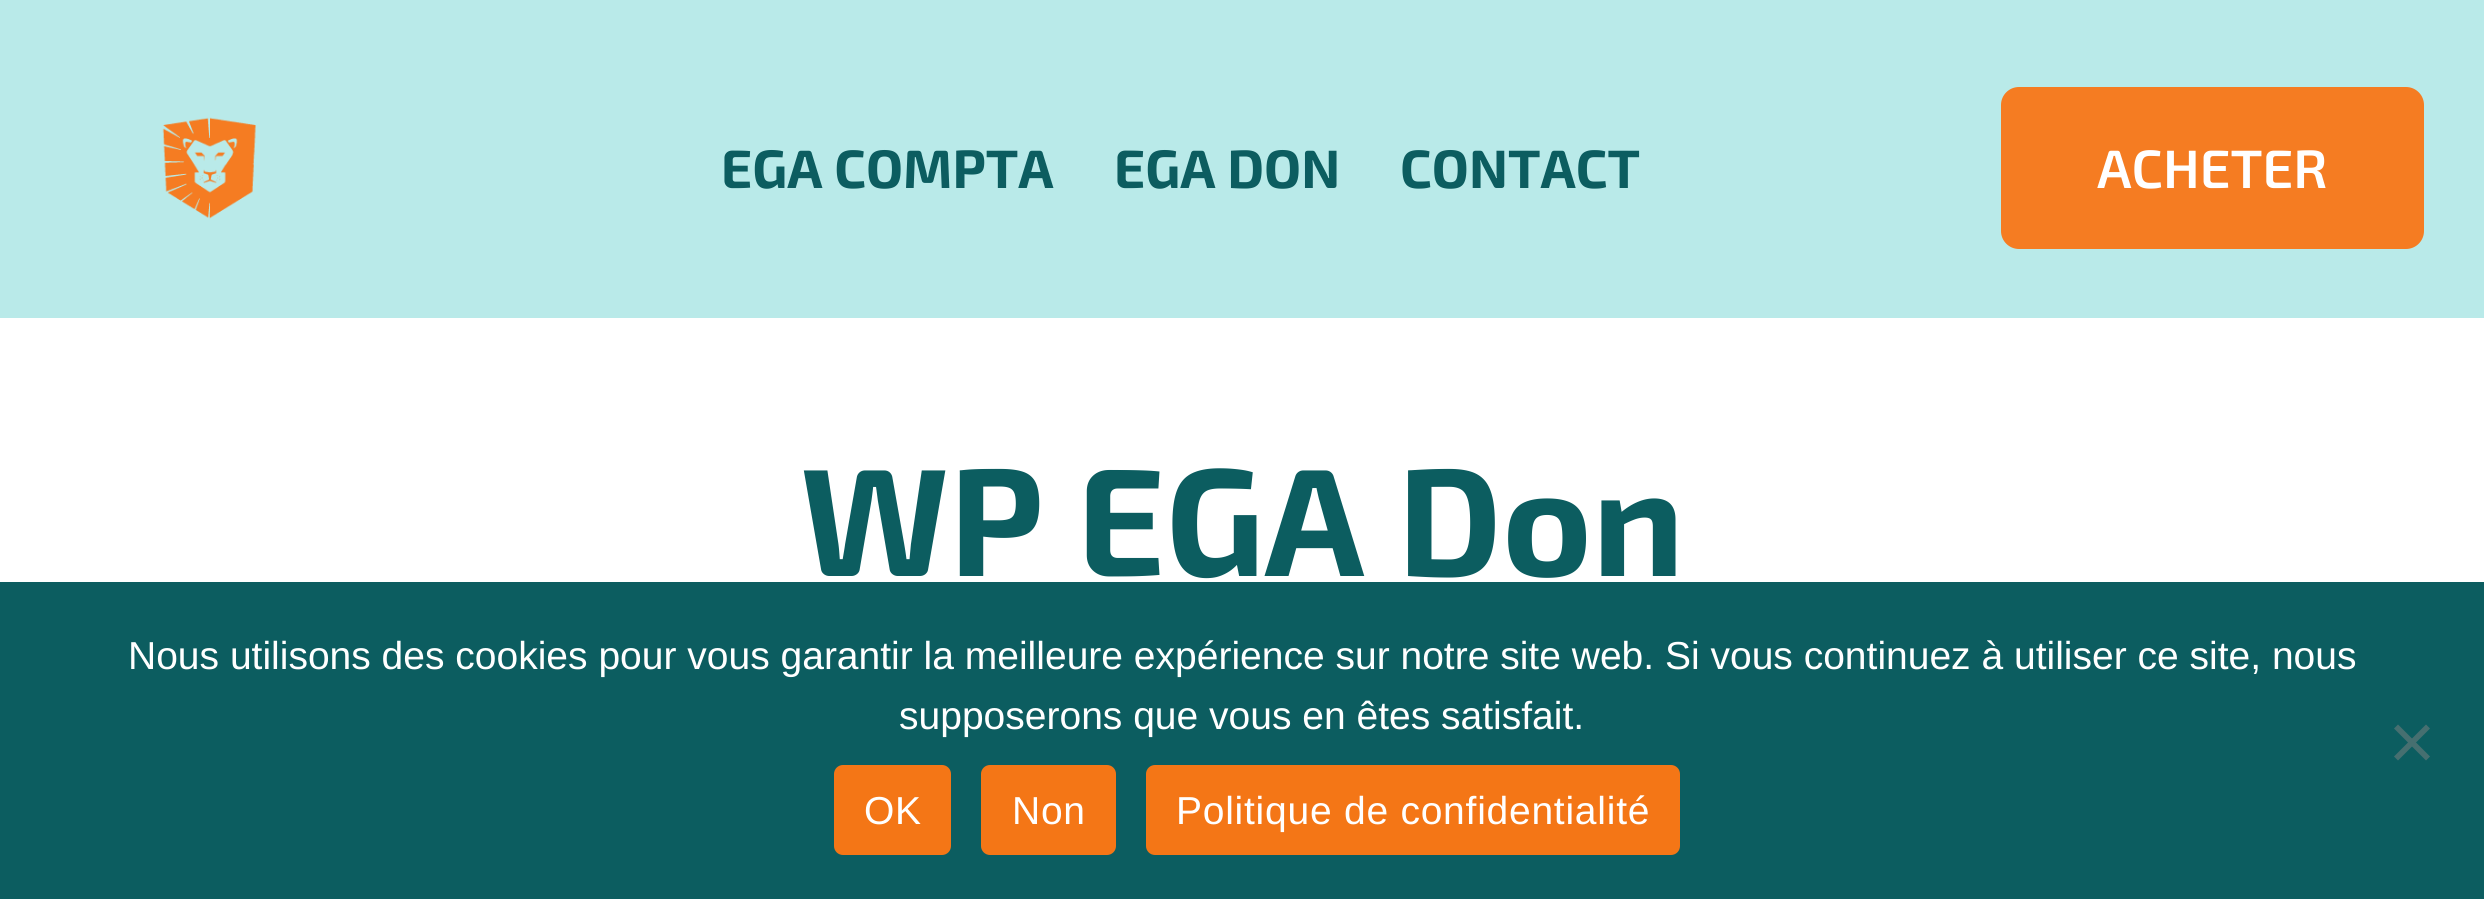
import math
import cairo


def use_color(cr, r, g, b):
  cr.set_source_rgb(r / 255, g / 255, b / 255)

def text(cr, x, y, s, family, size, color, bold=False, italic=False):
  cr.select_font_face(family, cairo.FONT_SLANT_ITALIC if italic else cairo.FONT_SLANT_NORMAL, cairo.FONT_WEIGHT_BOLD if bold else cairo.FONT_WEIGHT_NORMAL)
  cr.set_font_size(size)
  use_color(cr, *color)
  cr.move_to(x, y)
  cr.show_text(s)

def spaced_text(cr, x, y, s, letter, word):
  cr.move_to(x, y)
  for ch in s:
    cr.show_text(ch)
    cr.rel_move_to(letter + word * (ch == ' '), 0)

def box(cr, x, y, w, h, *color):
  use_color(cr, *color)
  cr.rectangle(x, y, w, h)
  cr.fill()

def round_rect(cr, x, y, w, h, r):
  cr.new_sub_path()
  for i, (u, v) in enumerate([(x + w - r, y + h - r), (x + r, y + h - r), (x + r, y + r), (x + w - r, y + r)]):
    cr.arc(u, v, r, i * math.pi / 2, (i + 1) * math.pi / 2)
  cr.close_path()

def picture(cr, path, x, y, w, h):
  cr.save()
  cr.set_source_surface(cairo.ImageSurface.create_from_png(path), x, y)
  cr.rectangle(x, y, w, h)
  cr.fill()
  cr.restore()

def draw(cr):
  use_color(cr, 255, 255, 255)
  cr.paint()
  box(cr, 0, 0, 2484, 318, 185, 234, 233)
  picture(cr, "img_01.png", 162, 117, 94, 102)
  use_color(cr, 245, 124, 34)
  round_rect(cr, 2001, 87, 423, 162, 18)
  cr.fill()
  box(cr, 0, 582, 2484, 317, 12, 93, 96)
  use_color(cr, 70, 111, 112)
  cr.new_path()
  cr.move_to(2426, 724.5)
  cr.line_to(2430, 728.5)
  cr.line_to(2398, 760.5)
  cr.line_to(2394, 756.5)
  cr.close_path()
  cr.fill()
  cr.new_path()
  cr.move_to(2394, 728.5)
  cr.line_to(2398, 724.5)
  cr.line_to(2430, 756.5)
  cr.line_to(2426, 760.5)
  cr.close_path()
  cr.fill()
  use_color(cr, 244, 118, 22)
  round_rect(cr, 834, 765, 117, 90, 9)
  cr.fill()
  round_rect(cr, 981, 765, 135, 90, 9)
  cr.fill()
  round_rect(cr, 1146, 765, 534, 90, 9)
  cr.fill()
  text(cr, 721, 188, "EGA COMPTA", "Exo 2", 54, (12, 93, 96), bold=True)
  text(cr, 1114, 188, "EGA DON", "Exo 2", 54, (12, 93, 96), bold=True)
  text(cr, 1400, 188, "CONTACT", "Exo 2", 54, (12, 93, 96), bold=True)
  text(cr, 2097, 188, "ACHETER", "Exo 2 SemiBold", 54, (255, 255, 255))
  text(cr, 800, 576, "WP EGA Don", "Exo 2", 153, (12, 93, 96), bold=True)
  text(cr, 128, 669, "Nous utilisons des cookies pour vous garantir la meilleure expérience sur notre site web. Si vous continuez à utiliser ce site, nous", "Liberation Sans", 39, (255, 255, 255))
  text(cr, 899, 729, "supposerons que vous en êtes satisfait.", "Liberation Sans", 39, (255, 255, 255))
  spaced_text(cr, 864, 824, "OK", 0.75, 0)
  spaced_text(cr, 1012, 824, "Non", 0.75, 0)
  spaced_text(cr, 1176, 824, "Politique de confidentialité", 0.75, 0)


surface = cairo.ImageSurface(cairo.FORMAT_RGB24, 2484, 899)
cr = cairo.Context(surface)
options = cairo.FontOptions()
options.set_hint_metrics(cairo.HINT_METRICS_OFF)
options.set_hint_style(cairo.HINT_STYLE_NONE)
cr.set_font_options(options)
cr.set_miter_limit(4)
draw(cr)
surface.write_to_png("out.png")
